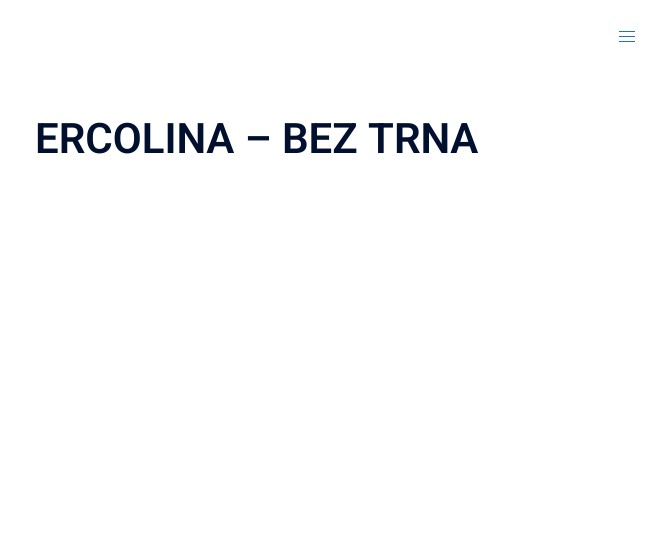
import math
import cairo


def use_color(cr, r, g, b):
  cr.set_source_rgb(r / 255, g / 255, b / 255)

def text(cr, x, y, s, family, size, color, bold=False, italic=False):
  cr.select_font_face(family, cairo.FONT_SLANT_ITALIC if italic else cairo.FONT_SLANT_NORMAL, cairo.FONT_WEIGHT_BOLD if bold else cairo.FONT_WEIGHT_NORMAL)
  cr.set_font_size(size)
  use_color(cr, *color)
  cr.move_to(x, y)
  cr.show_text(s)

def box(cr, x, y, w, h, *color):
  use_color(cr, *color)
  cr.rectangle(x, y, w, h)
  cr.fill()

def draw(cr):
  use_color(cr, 255, 255, 255)
  cr.paint()
  box(cr, 619, 31, 16, 1, 30, 115, 190)
  box(cr, 619, 36, 16, 1, 30, 115, 190)
  box(cr, 619, 41, 16, 1, 30, 115, 190)
  text(cr, 35, 153, "ERCOLINA – BEZ TRNA", "Roboto SemiBold", 42, (0, 16, 46))


surface = cairo.ImageSurface(cairo.FORMAT_RGB24, 650, 535)
cr = cairo.Context(surface)
options = cairo.FontOptions()
options.set_hint_metrics(cairo.HINT_METRICS_OFF)
options.set_hint_style(cairo.HINT_STYLE_NONE)
cr.set_font_options(options)
cr.set_miter_limit(4)
draw(cr)
surface.write_to_png("out.png")
